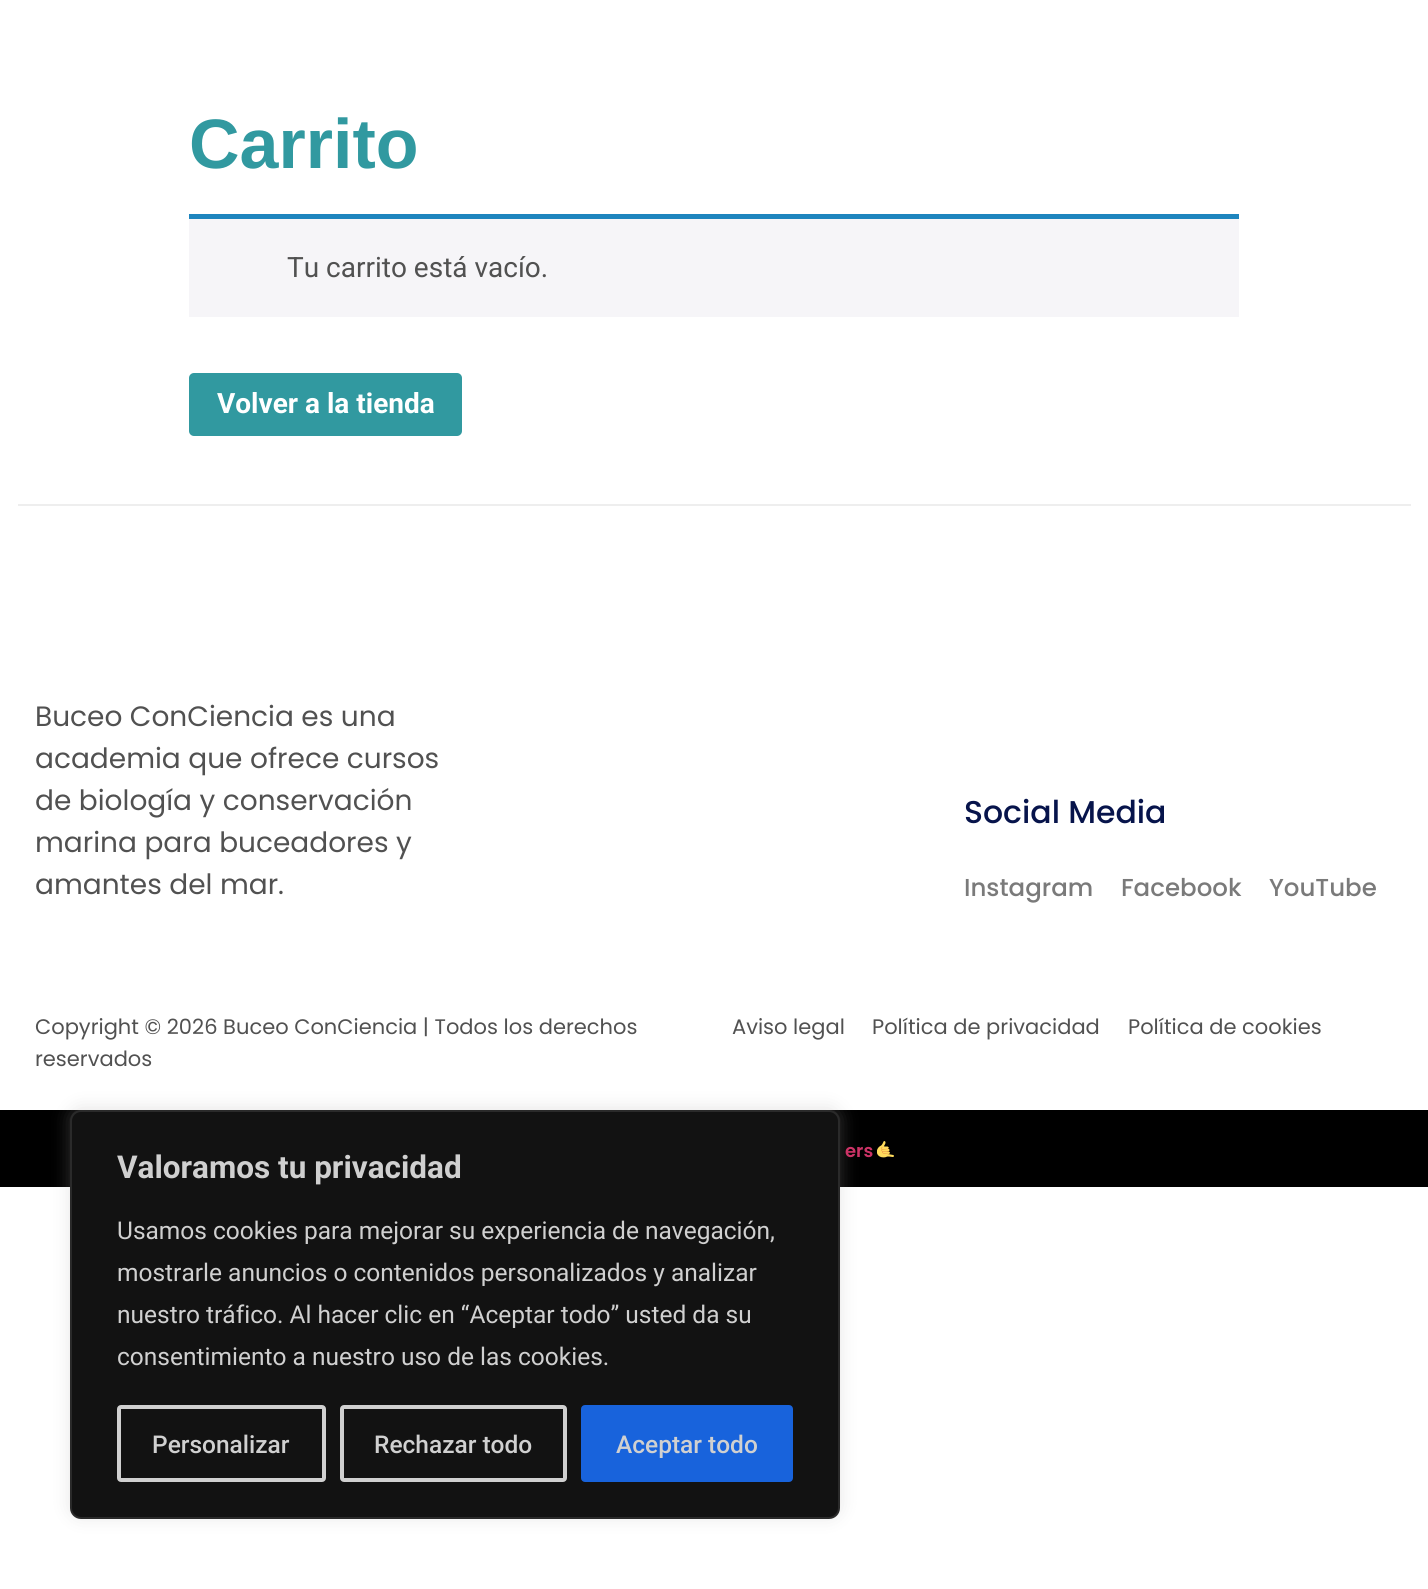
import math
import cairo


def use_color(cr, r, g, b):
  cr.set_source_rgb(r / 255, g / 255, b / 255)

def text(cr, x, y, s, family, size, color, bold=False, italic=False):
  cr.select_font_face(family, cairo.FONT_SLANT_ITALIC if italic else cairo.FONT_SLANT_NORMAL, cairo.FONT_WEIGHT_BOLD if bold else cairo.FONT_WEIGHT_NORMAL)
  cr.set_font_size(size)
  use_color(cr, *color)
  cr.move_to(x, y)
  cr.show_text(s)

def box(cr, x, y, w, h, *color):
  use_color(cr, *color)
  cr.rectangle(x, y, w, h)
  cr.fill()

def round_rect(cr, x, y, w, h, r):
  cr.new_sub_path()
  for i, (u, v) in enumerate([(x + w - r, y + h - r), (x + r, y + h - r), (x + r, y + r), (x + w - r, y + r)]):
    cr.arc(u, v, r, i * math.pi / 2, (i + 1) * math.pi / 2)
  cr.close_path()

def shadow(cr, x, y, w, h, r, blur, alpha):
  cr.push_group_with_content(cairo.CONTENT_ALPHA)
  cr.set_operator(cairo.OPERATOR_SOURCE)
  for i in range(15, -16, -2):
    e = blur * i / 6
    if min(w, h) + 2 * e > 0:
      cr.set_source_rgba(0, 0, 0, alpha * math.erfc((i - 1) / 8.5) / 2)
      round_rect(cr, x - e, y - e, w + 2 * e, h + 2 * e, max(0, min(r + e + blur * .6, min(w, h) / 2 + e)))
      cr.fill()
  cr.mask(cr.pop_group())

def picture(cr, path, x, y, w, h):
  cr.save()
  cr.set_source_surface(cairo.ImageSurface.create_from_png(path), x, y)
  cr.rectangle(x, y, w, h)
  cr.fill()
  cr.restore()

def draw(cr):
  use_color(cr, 255, 255, 255)
  cr.paint()
  box(cr, 189, 219, 1050, 98, 246, 245, 248)
  box(cr, 189, 214, 1050, 5, 30, 133, 190)
  use_color(cr, 49, 153, 160)
  round_rect(cr, 189, 373, 273, 63, 5)
  cr.fill()
  box(cr, 18, 504, 1393, 2, 238, 238, 238)
  box(cr, 0, 1110, 1428, 77, 0, 0, 0)
  picture(cr, "img_01.png", 877, 1141, 17, 17)
  use_color(cr, 172, 171, 171)
  shadow(cr, 70, 1108, 770, 409, 11, 9, 0.3)
  use_color(cr, 18, 18, 18)
  round_rect(cr, 71, 1111, 768, 407, 10)
  cr.fill_preserve()
  use_color(cr, 42, 42, 42)
  cr.stroke()
  round_rect(cr, 119, 1407, 205, 73, 2)
  use_color(cr, 208, 208, 208)
  cr.set_line_width(4)
  cr.stroke()
  round_rect(cr, 342, 1407, 223, 73, 2)
  cr.stroke()
  use_color(cr, 24, 99, 220)
  round_rect(cr, 583, 1407, 208, 73, 2)
  cr.fill_preserve()
  cr.stroke()
  text(cr, 189, 168, "Carrito", "Liberation Sans", 70, (49, 153, 160), bold=True)
  text(cr, 287, 277, "Tu carrito está vacío.", "Roboto", 28, (81, 81, 81))
  text(cr, 217, 413, "Volver a la tienda", "Roboto", 28, (255, 255, 255), bold=True)
  text(cr, 35, 726, "Buceo ConCiencia es una", "Poppins", 28, (81, 81, 81))
  text(cr, 35, 768, "academia que ofrece cursos", "Poppins", 28, (81, 81, 81))
  text(cr, 35, 810, "de biología y conservación", "Poppins", 28, (81, 81, 81))
  text(cr, 35, 852, "marina para buceadores y", "Poppins", 28, (81, 81, 81))
  text(cr, 35, 894, "amantes del mar.", "Poppins", 28, (81, 81, 81))
  text(cr, 964, 823, "Social Media", "Poppins Medium", 31.5, (7, 20, 75))
  text(cr, 964, 896, "Instagram", "Poppins Medium", 24.5, (122, 122, 122))
  text(cr, 1121, 896, "Facebook", "Poppins Medium", 24.5, (122, 122, 122))
  text(cr, 1269, 896, "YouTube", "Poppins Medium", 24.5, (122, 122, 122))
  text(cr, 35, 1034, "Copyright © 2026 Buceo ConCiencia | Todos los derechos", "Poppins", 21, (81, 81, 81))
  text(cr, 35, 1066, "reservados", "Poppins", 21, (81, 81, 81))
  text(cr, 732, 1034, "Aviso legal", "Poppins", 21, (81, 81, 81))
  text(cr, 872, 1034, "Política de privacidad", "Poppins", 21, (81, 81, 81))
  text(cr, 1128, 1034, "Política de cookies", "Poppins", 21, (81, 81, 81))
  text(cr, 845, 1157, "ers", "Poppins SemiBold", 18, (204, 51, 102))
  text(cr, 117, 1178, "Valoramos tu privacidad", "Roboto", 31.5, (208, 208, 208), bold=True)
  text(cr, 117, 1239, "Usamos cookies para mejorar su experiencia de navegación,", "Roboto", 24.5, (208, 208, 208))
  text(cr, 117, 1281, "mostrarle anuncios o contenidos personalizados y analizar", "Roboto", 24.5, (208, 208, 208))
  text(cr, 117, 1323, "nuestro tráfico. Al hacer clic en “Aceptar todo” usted da su", "Roboto", 24.5, (208, 208, 208))
  text(cr, 117, 1365, "consentimiento a nuestro uso de las cookies.", "Roboto", 24.5, (208, 208, 208))
  text(cr, 152, 1453, "Personalizar", "Roboto Medium", 24.5, (208, 208, 208))
  text(cr, 374, 1453, "Rechazar todo", "Roboto Medium", 24.5, (208, 208, 208))
  text(cr, 616, 1453, "Aceptar todo", "Roboto Medium", 24.5, (208, 208, 208))


surface = cairo.ImageSurface(cairo.FORMAT_RGB24, 1428, 1589)
cr = cairo.Context(surface)
options = cairo.FontOptions()
options.set_hint_metrics(cairo.HINT_METRICS_OFF)
options.set_hint_style(cairo.HINT_STYLE_NONE)
cr.set_font_options(options)
cr.set_miter_limit(4)
draw(cr)
surface.write_to_png("out.png")
